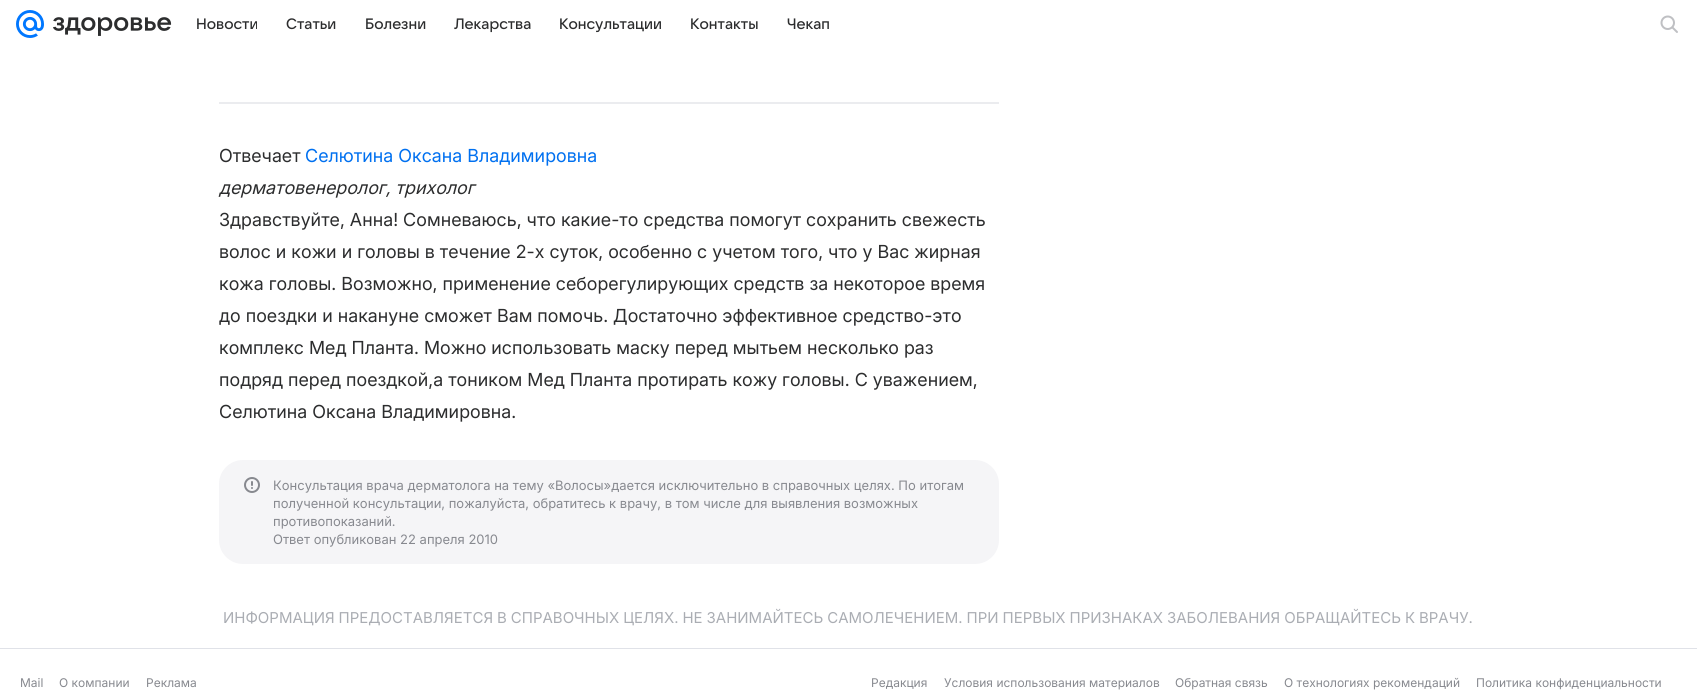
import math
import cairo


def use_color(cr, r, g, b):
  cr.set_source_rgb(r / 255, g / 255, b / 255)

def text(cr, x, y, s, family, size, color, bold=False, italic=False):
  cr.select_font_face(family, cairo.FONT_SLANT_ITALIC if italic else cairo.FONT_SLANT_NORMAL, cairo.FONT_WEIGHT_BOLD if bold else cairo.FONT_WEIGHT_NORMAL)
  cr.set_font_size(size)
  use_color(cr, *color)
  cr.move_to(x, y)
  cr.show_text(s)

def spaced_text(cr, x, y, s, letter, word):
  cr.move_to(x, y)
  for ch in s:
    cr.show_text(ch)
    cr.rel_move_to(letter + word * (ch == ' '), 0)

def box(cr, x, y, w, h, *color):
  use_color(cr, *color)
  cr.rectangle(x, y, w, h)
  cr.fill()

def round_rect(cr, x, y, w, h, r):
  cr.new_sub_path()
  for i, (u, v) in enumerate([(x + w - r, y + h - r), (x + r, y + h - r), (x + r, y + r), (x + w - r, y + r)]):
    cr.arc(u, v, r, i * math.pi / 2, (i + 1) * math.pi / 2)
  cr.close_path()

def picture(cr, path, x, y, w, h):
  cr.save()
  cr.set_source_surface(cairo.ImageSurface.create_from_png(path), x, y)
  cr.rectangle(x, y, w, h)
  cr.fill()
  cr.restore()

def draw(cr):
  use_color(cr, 255, 255, 255)
  cr.paint()
  picture(cr, "img_01.png", 16, 10, 28, 28)
  picture(cr, "img_02.png", 53, 17, 119, 19)
  picture(cr, "img_03.png", 1660, 15, 18, 18)
  box(cr, 219, 102, 780, 2, 235, 236, 239)
  use_color(cr, 245, 245, 247)
  round_rect(cr, 219, 460, 780, 104, 24)
  cr.fill()
  picture(cr, "img_04.png", 244, 477, 16, 16)
  box(cr, 0, 648, 1697, 1, 224, 226, 232)
  text(cr, 196, 29, "Новости", "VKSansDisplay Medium", 15, (44, 45, 46))
  text(cr, 286, 29, "Статьи", "VKSansDisplay Medium", 15, (44, 45, 46))
  text(cr, 365, 29, "Болезни", "VKSansDisplay Medium", 15, (44, 45, 46))
  text(cr, 454, 29, "Лекарства", "VKSansDisplay Medium", 15, (44, 45, 46))
  text(cr, 559, 29, "Консультации", "VKSansDisplay Medium", 15, (44, 45, 46))
  text(cr, 690, 29, "Контакты", "VKSansDisplay Medium", 15, (44, 45, 46))
  text(cr, 787, 29, "Чекап", "VKSansDisplay Medium", 15, (44, 45, 46))
  cr.select_font_face("Inter")
  cr.set_font_size(18)
  spaced_text(cr, 219, 162, "Отвечает", 0.05, 0)
  use_color(cr, 0, 112, 240)
  spaced_text(cr, 305, 162, "Селютина Оксана Владимировна", 0.05, 0)
  cr.select_font_face("Inter", cairo.FONT_SLANT_ITALIC)
  use_color(cr, 44, 45, 46)
  spaced_text(cr, 219, 194, "дерматовенеролог, трихолог", 0.05, 0)
  cr.select_font_face("Inter")
  spaced_text(cr, 219, 226, "Здравствуйте, Анна! Сомневаюсь, что какие-то средства помогут сохранить свежесть", 0.05, 0)
  spaced_text(cr, 219, 258, "волос и кожи и головы в течение 2-х суток, особенно с учетом того, что у Вас жирная", 0.05, 0)
  spaced_text(cr, 219, 290, "кожа головы. Возможно, применение себорегулирующих средств за некоторое время", 0.05, 0)
  spaced_text(cr, 219, 322, "до поездки и накануне сможет Вам помочь. Достаточно эффективное средство-это", 0.05, 0)
  spaced_text(cr, 219, 354, "комплекс Мед Планта. Можно использовать маску перед мытьем несколько раз", 0.05, 0)
  spaced_text(cr, 219, 386, "подряд перед поездкой,а тоником Мед Планта протирать кожу головы. С уважением,", 0.05, 0)
  spaced_text(cr, 219, 418, "Селютина Оксана Владимировна.", 0.05, 0)
  text(cr, 273, 490, "Консультация врача дерматолога на тему «Волосы»дается исключительно в справочных целях. По итогам", "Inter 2", 13, (135, 137, 143))
  text(cr, 273, 508, "полученной консультации, пожалуйста, обратитесь к врачу, в том числе для выявления возможных", "Inter 2", 13, (135, 137, 143))
  text(cr, 273, 526, "противопоказаний.", "Inter 2", 13, (135, 137, 143))
  text(cr, 273, 544, "Ответ опубликован 22 апреля 2010", "Inter 2", 13, (135, 137, 143))
  cr.set_font_size(15)
  use_color(cr, 170, 173, 179)
  spaced_text(cr, 223, 623, "ИНФОРМАЦИЯ ПРЕДОСТАВЛЯЕТСЯ В СПРАВОЧНЫХ ЦЕЛЯХ. НЕ ЗАНИМАЙТЕСЬ САМОЛЕЧЕНИЕМ. ПРИ ПЕРВЫХ ПРИЗНАКАХ ЗАБОЛЕВАНИЯ ОБРАЩАЙТЕСЬ К ВРАЧУ.", 0, -0.25)
  text(cr, 20, 687, "Mail", "Inter 2", 12, (135, 137, 143))
  text(cr, 59, 687, "О компании", "Inter 2", 12, (135, 137, 143))
  text(cr, 146, 687, "Реклама", "Inter 2", 12, (135, 137, 143))
  text(cr, 871, 687, "Редакция", "Inter 2", 12, (135, 137, 143))
  text(cr, 944, 687, "Условия использования материалов", "Inter 2", 12, (135, 137, 143))
  text(cr, 1175, 687, "Обратная связь", "Inter 2", 12, (135, 137, 143))
  text(cr, 1284, 687, "О технологиях рекомендаций", "Inter 2", 12, (135, 137, 143))
  text(cr, 1476, 687, "Политика конфиденциальности", "Inter 2", 12, (135, 137, 143))


surface = cairo.ImageSurface(cairo.FORMAT_RGB24, 1697, 697)
cr = cairo.Context(surface)
options = cairo.FontOptions()
options.set_hint_metrics(cairo.HINT_METRICS_OFF)
options.set_hint_style(cairo.HINT_STYLE_NONE)
cr.set_font_options(options)
cr.set_miter_limit(4)
draw(cr)
surface.write_to_png("out.png")
